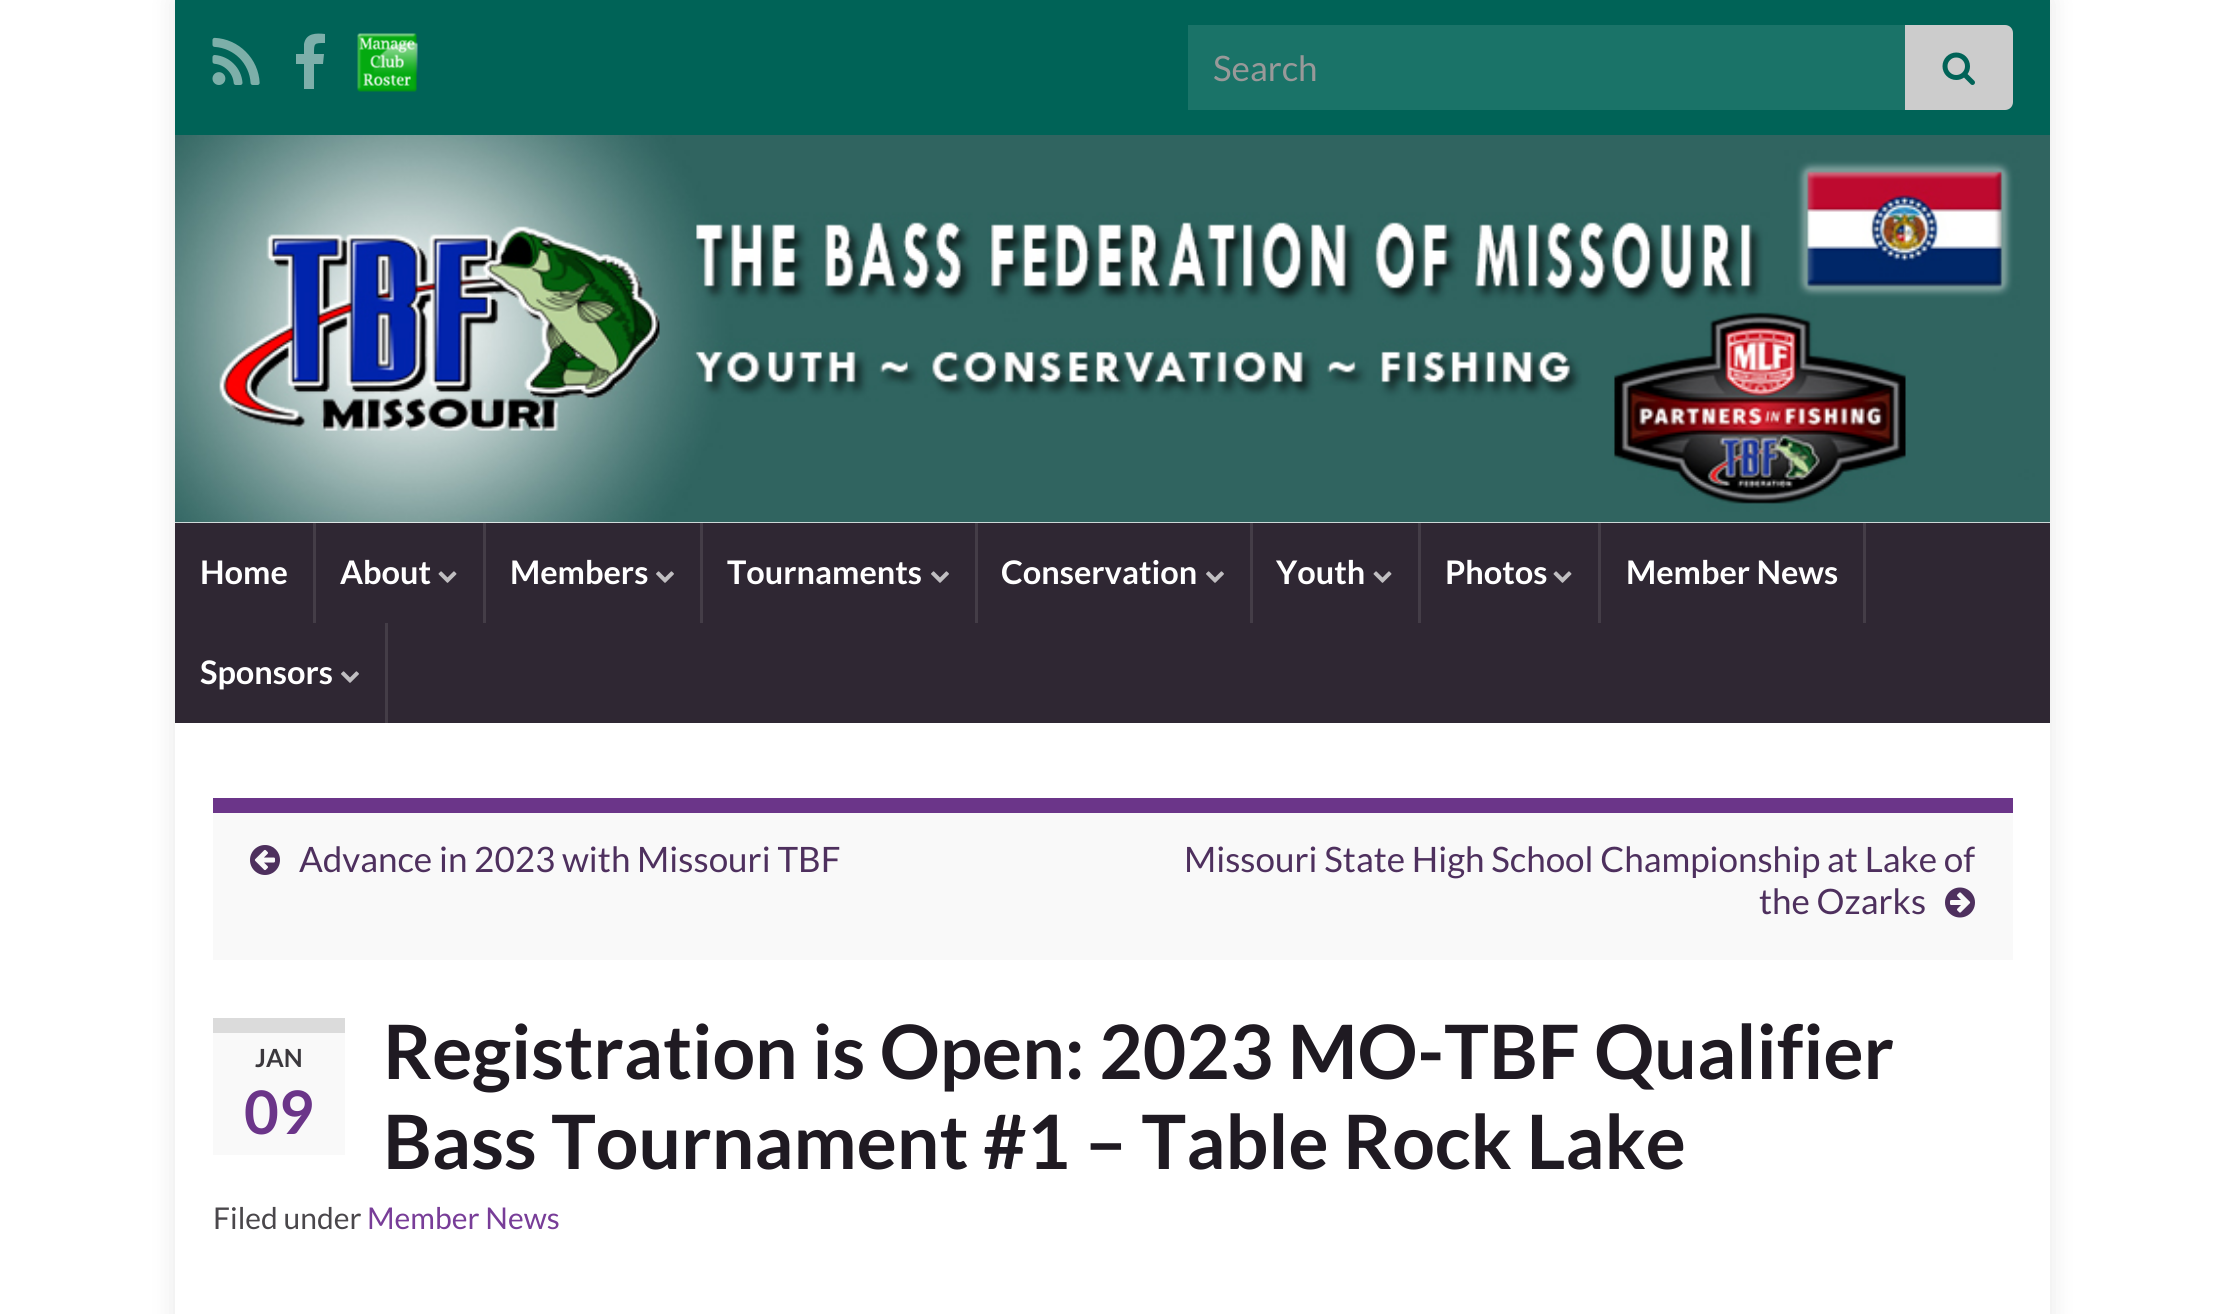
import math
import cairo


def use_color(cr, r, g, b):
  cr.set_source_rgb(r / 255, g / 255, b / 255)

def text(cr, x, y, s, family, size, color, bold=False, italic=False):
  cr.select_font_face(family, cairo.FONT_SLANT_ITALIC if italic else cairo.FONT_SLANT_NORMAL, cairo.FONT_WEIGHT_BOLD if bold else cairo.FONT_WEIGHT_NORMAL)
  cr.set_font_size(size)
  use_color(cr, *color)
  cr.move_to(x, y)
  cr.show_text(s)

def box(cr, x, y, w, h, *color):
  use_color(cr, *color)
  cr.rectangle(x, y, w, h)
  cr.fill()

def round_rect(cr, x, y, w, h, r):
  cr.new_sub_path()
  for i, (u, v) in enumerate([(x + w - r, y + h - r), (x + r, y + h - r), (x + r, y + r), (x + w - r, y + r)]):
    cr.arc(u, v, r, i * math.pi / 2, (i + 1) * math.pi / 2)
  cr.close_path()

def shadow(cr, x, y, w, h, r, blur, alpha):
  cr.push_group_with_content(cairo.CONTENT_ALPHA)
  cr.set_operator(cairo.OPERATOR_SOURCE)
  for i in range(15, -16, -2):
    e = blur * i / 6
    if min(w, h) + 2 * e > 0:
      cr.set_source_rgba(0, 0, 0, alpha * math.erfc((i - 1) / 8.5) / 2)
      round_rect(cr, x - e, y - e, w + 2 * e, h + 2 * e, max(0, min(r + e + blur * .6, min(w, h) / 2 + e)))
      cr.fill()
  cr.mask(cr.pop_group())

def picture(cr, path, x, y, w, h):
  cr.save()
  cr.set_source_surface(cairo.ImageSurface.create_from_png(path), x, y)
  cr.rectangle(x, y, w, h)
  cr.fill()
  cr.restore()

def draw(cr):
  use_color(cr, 255, 255, 255)
  cr.paint()
  cr.save()
  cr.set_fill_rule(cairo.FILL_RULE_EVEN_ODD)
  cr.new_path()
  cr.move_to(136, 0)
  cr.line_to(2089, 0)
  cr.line_to(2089, 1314)
  cr.line_to(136, 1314)
  cr.close_path()
  cr.move_to(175, 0)
  cr.line_to(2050, 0)
  cr.line_to(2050, 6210)
  cr.line_to(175, 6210)
  cr.close_path()
  cr.clip()
  use_color(cr, 0, 0, 0)
  shadow(cr, 175, 0, 1875, 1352, 0, 12.5, 0.1)
  cr.restore()
  box(cr, 175, 0, 1875, 135, 0, 99, 87)
  picture(cr, "img_01.png", 212, 37, 48, 48)
  use_color(cr, 125, 175, 170)
  cr.new_path()
  cr.move_to(325, 34)
  cr.line_to(325, 43)
  cr.curve_to(314, 43, 314, 43, 314, 54)
  cr.line_to(324, 54)
  cr.line_to(323, 64)
  cr.line_to(314, 64)
  cr.line_to(314, 89)
  cr.line_to(304, 89)
  cr.line_to(304, 64)
  cr.line_to(296, 64)
  cr.line_to(296, 54)
  cr.line_to(304, 54)
  cr.line_to(304, 44)
  cr.curve_to(306, 33, 316, 33, 325, 34)
  cr.close_path()
  cr.fill()
  picture(cr, "img_02.png", 357, 33, 61, 59)
  box(cr, 1188, 25, 717, 85, 26, 115, 104)
  use_color(cr, 204, 204, 204)
  cr.new_path()
  cr.move_to(1905, 25)
  cr.line_to(2005, 25)
  cr.curve_to(2009.5, 25, 2013, 28.5, 2013, 33)
  cr.line_to(2013, 102)
  cr.curve_to(2013, 106.5, 2009.5, 110, 2005, 110)
  cr.line_to(1905, 110)
  cr.close_path()
  cr.fill()
  picture(cr, "img_03.png", 1942, 52, 33, 33)
  picture(cr, "img_04.png", 175, 135, 1875, 388)
  box(cr, 175, 523, 1875, 200, 47, 39, 51)
  box(cr, 313, 523, 3, 100, 68, 61, 71)
  box(cr, 483, 523, 3, 100, 68, 61, 71)
  picture(cr, "img_05.png", 438, 571, 19, 12)
  box(cr, 700, 523, 3, 100, 68, 61, 71)
  picture(cr, "img_06.png", 656, 571, 18, 12)
  box(cr, 975, 523, 3, 100, 68, 61, 71)
  picture(cr, "img_06.png", 931, 571, 18, 12)
  box(cr, 1250, 523, 3, 100, 68, 61, 71)
  picture(cr, "img_06.png", 1206, 571, 18, 12)
  box(cr, 1418, 523, 3, 100, 68, 61, 71)
  picture(cr, "img_05.png", 1373, 571, 19, 12)
  box(cr, 1598, 523, 3, 100, 68, 61, 71)
  picture(cr, "img_05.png", 1553, 571, 19, 12)
  box(cr, 1863, 523, 3, 100, 68, 61, 71)
  box(cr, 385, 623, 3, 100, 68, 61, 71)
  picture(cr, "img_06.png", 341, 671, 18, 12)
  box(cr, 213, 813, 1800, 147, 249, 249, 249)
  box(cr, 213, 798, 1800, 15, 107, 53, 137)
  picture(cr, "img_07.png", 250, 845, 30, 30)
  picture(cr, "img_08.png", 1945, 887, 30, 31)
  box(cr, 213, 1033, 132, 122, 249, 249, 249)
  box(cr, 213, 1018, 132, 15, 219, 219, 219)
  text(cr, 1213, 81, "Search", "Lato", 35, (153, 153, 153))
  text(cr, 200, 584, "Home", "Lato", 32.5, (255, 255, 255), bold=True)
  text(cr, 340, 584, "About", "Lato", 32.5, (255, 255, 255), bold=True)
  text(cr, 510, 584, "Members", "Lato", 32.5, (255, 255, 255), bold=True)
  text(cr, 727, 584, "Tournaments", "Lato", 32.5, (255, 255, 255), bold=True)
  text(cr, 1001, 584, "Conservation", "Lato", 32.5, (255, 255, 255), bold=True)
  text(cr, 1276, 584, "Youth", "Lato", 32.5, (255, 255, 255), bold=True)
  text(cr, 1445, 584, "Photos", "Lato", 32.5, (255, 255, 255), bold=True)
  text(cr, 1626, 584, "Member News", "Lato", 32.5, (255, 255, 255), bold=True)
  text(cr, 200, 684, "Sponsors", "Lato", 32.5, (255, 255, 255), bold=True)
  text(cr, 299, 872, "Advance in 2023 with Missouri TBF", "Lato", 35, (78, 48, 94))
  text(cr, 1184, 872, "Missouri State High School Championship at Lake of", "Lato", 35, (78, 48, 94))
  text(cr, 1759, 914, "the Ozarks", "Lato", 35, (78, 48, 94))
  text(cr, 255, 1067, "JAN", "Lato", 25, (59, 56, 61), bold=True)
  text(cr, 244, 1134, "09", "Lato", 60, (107, 53, 137), bold=True)
  text(cr, 383, 1079, "Registration is Open: 2023 MO-TBF Qualifier", "Lato", 75, (31, 26, 34), bold=True)
  text(cr, 383, 1169, "Bass Tournament #1 – Table Rock Lake", "Lato", 75, (31, 26, 34), bold=True)
  text(cr, 213, 1229, "Filed under", "Lato", 30, (74, 71, 75))
  text(cr, 367, 1229, "Member News", "Lato", 30, (120, 61, 152))


surface = cairo.ImageSurface(cairo.FORMAT_RGB24, 2224, 1314)
cr = cairo.Context(surface)
options = cairo.FontOptions()
options.set_hint_metrics(cairo.HINT_METRICS_OFF)
options.set_hint_style(cairo.HINT_STYLE_NONE)
cr.set_font_options(options)
cr.set_miter_limit(4)
draw(cr)
surface.write_to_png("out.png")
